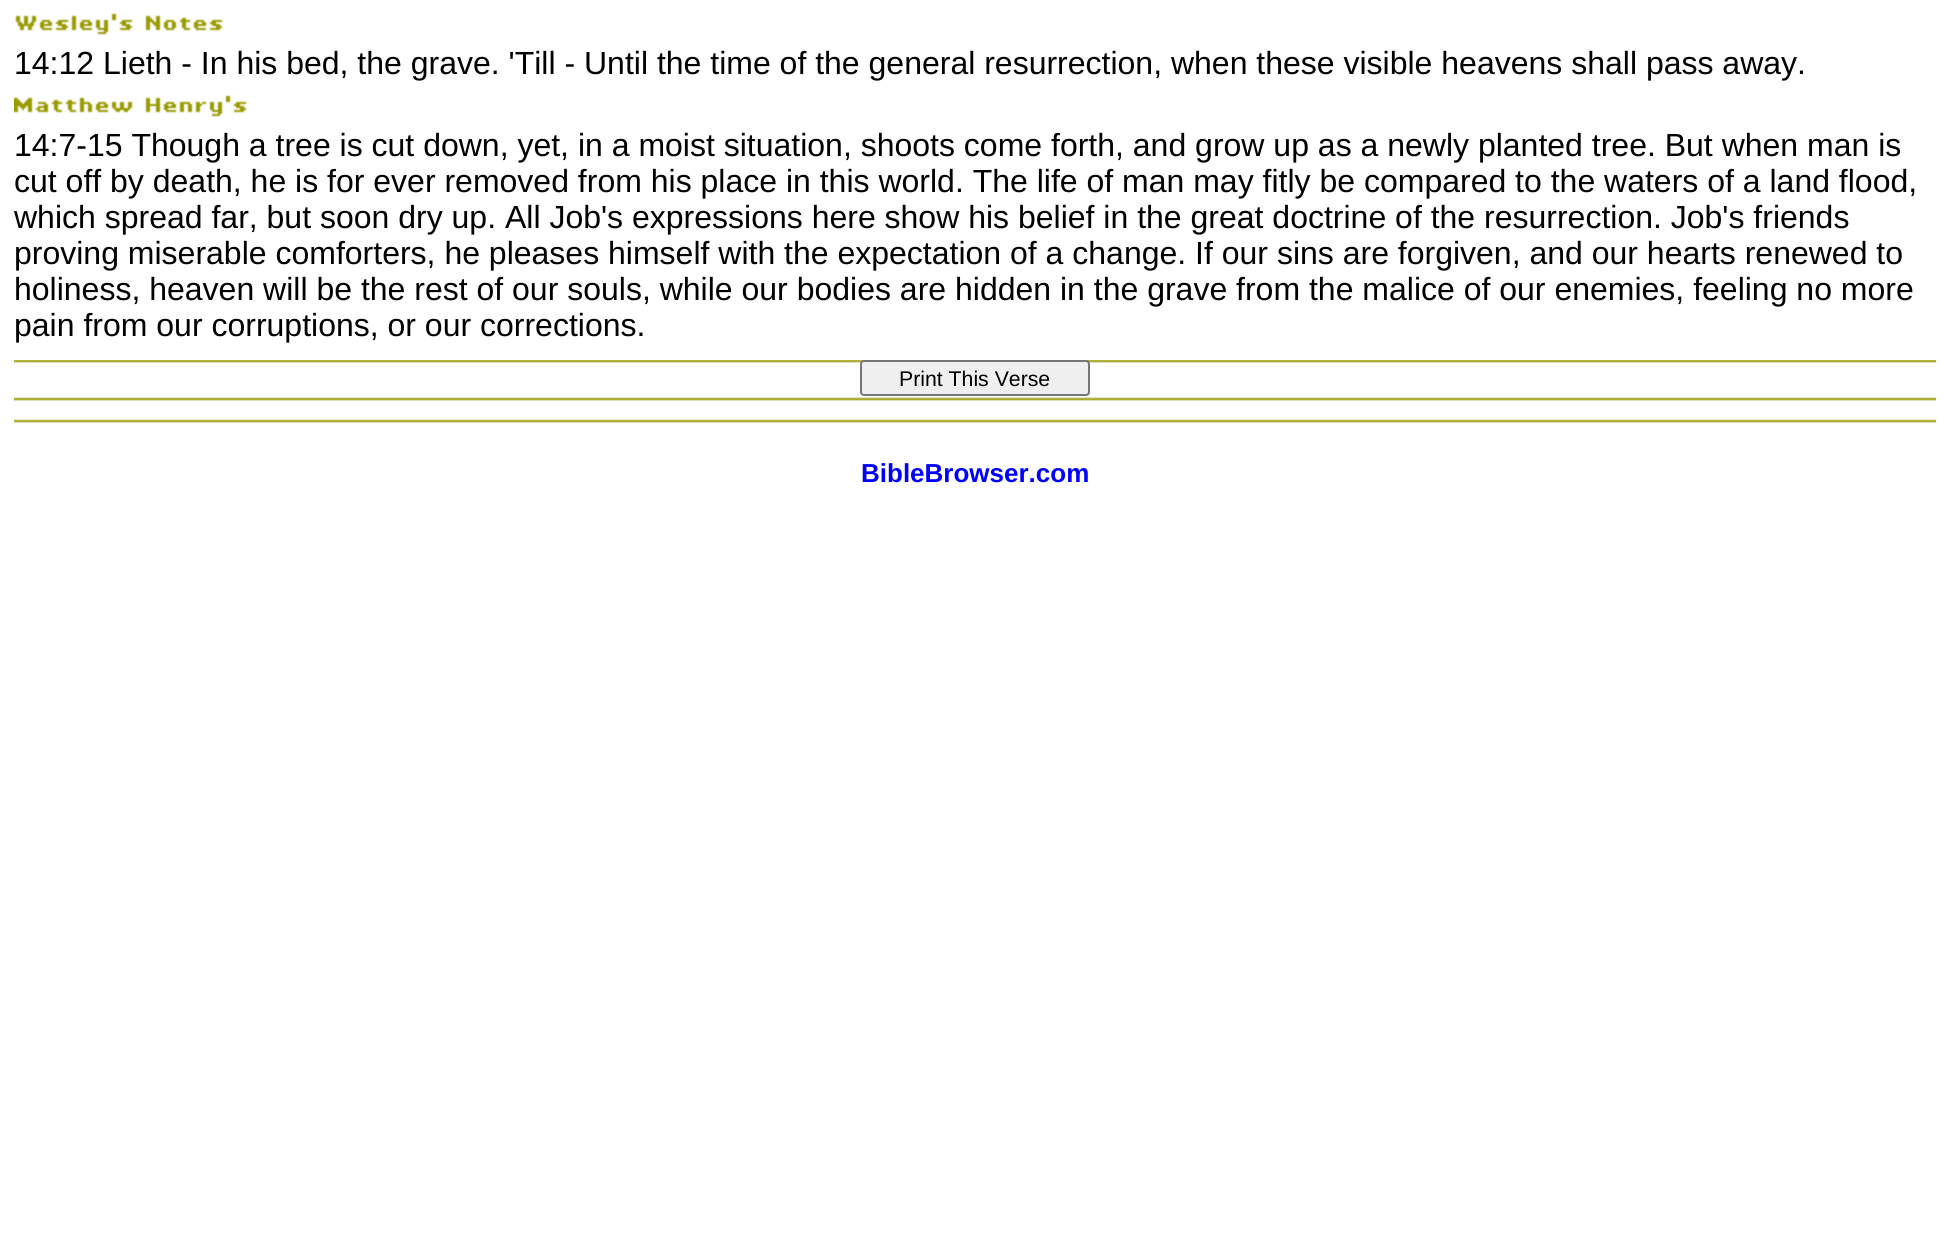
import math
import cairo


def use_color(cr, r, g, b):
  cr.set_source_rgb(r / 255, g / 255, b / 255)

def text(cr, x, y, s, family, size, color, bold=False, italic=False):
  cr.select_font_face(family, cairo.FONT_SLANT_ITALIC if italic else cairo.FONT_SLANT_NORMAL, cairo.FONT_WEIGHT_BOLD if bold else cairo.FONT_WEIGHT_NORMAL)
  cr.set_font_size(size)
  use_color(cr, *color)
  cr.move_to(x, y)
  cr.show_text(s)

def round_rect(cr, x, y, w, h, r):
  cr.new_sub_path()
  for i, (u, v) in enumerate([(x + w - r, y + h - r), (x + r, y + h - r), (x + r, y + r), (x + w - r, y + r)]):
    cr.arc(u, v, r, i * math.pi / 2, (i + 1) * math.pi / 2)
  cr.close_path()

def picture(cr, path, x, y, w, h):
  cr.save()
  cr.set_source_surface(cairo.ImageSurface.create_from_png(path), x, y)
  cr.rectangle(x, y, w, h)
  cr.fill()
  cr.restore()

def draw(cr):
  use_color(cr, 255, 255, 255)
  cr.paint()
  picture(cr, "img_01.png", 15, 13, 208, 22)
  picture(cr, "img_02.png", 14, 95, 233, 22)
  picture(cr, "img_03.png", 14, 360, 1922, 63)
  use_color(cr, 239, 239, 239)
  round_rect(cr, 861, 361, 228, 34, 3)
  cr.fill_preserve()
  use_color(cr, 118, 118, 118)
  cr.stroke()
  text(cr, 14, 74, "14:12 Lieth - In his bed, the grave. 'Till - Until the time of the general resurrection, when these visible heavens shall pass away.", "Liberation Sans", 32, (0, 0, 0))
  text(cr, 14, 156, "14:7-15 Though a tree is cut down, yet, in a moist situation, shoots come forth, and grow up as a newly planted tree. But when man is", "Liberation Sans", 32, (0, 0, 0))
  text(cr, 14, 192, "cut off by death, he is for ever removed from his place in this world. The life of man may fitly be compared to the waters of a land flood,", "Liberation Sans", 32, (0, 0, 0))
  text(cr, 14, 228, "which spread far, but soon dry up. All Job's expressions here show his belief in the great doctrine of the resurrection. Job's friends", "Liberation Sans", 32, (0, 0, 0))
  text(cr, 14, 264, "proving miserable comforters, he pleases himself with the expectation of a change. If our sins are forgiven, and our hearts renewed to", "Liberation Sans", 32, (0, 0, 0))
  text(cr, 14, 300, "holiness, heaven will be the rest of our souls, while our bodies are hidden in the grave from the malice of our enemies, feeling no more", "Liberation Sans", 32, (0, 0, 0))
  text(cr, 14, 336, "pain from our corruptions, or our corrections.", "Liberation Sans", 32, (0, 0, 0))
  text(cr, 899, 386, "Print This Verse", "Liberation Sans", 21.25, (0, 0, 0))
  text(cr, 861, 482, "BibleBrowser.com", "Liberation Sans", 26, (0, 0, 255), bold=True)


surface = cairo.ImageSurface(cairo.FORMAT_RGB24, 1949, 1253)
cr = cairo.Context(surface)
options = cairo.FontOptions()
options.set_hint_metrics(cairo.HINT_METRICS_OFF)
options.set_hint_style(cairo.HINT_STYLE_NONE)
cr.set_font_options(options)
cr.set_miter_limit(4)
draw(cr)
surface.write_to_png("out.png")
